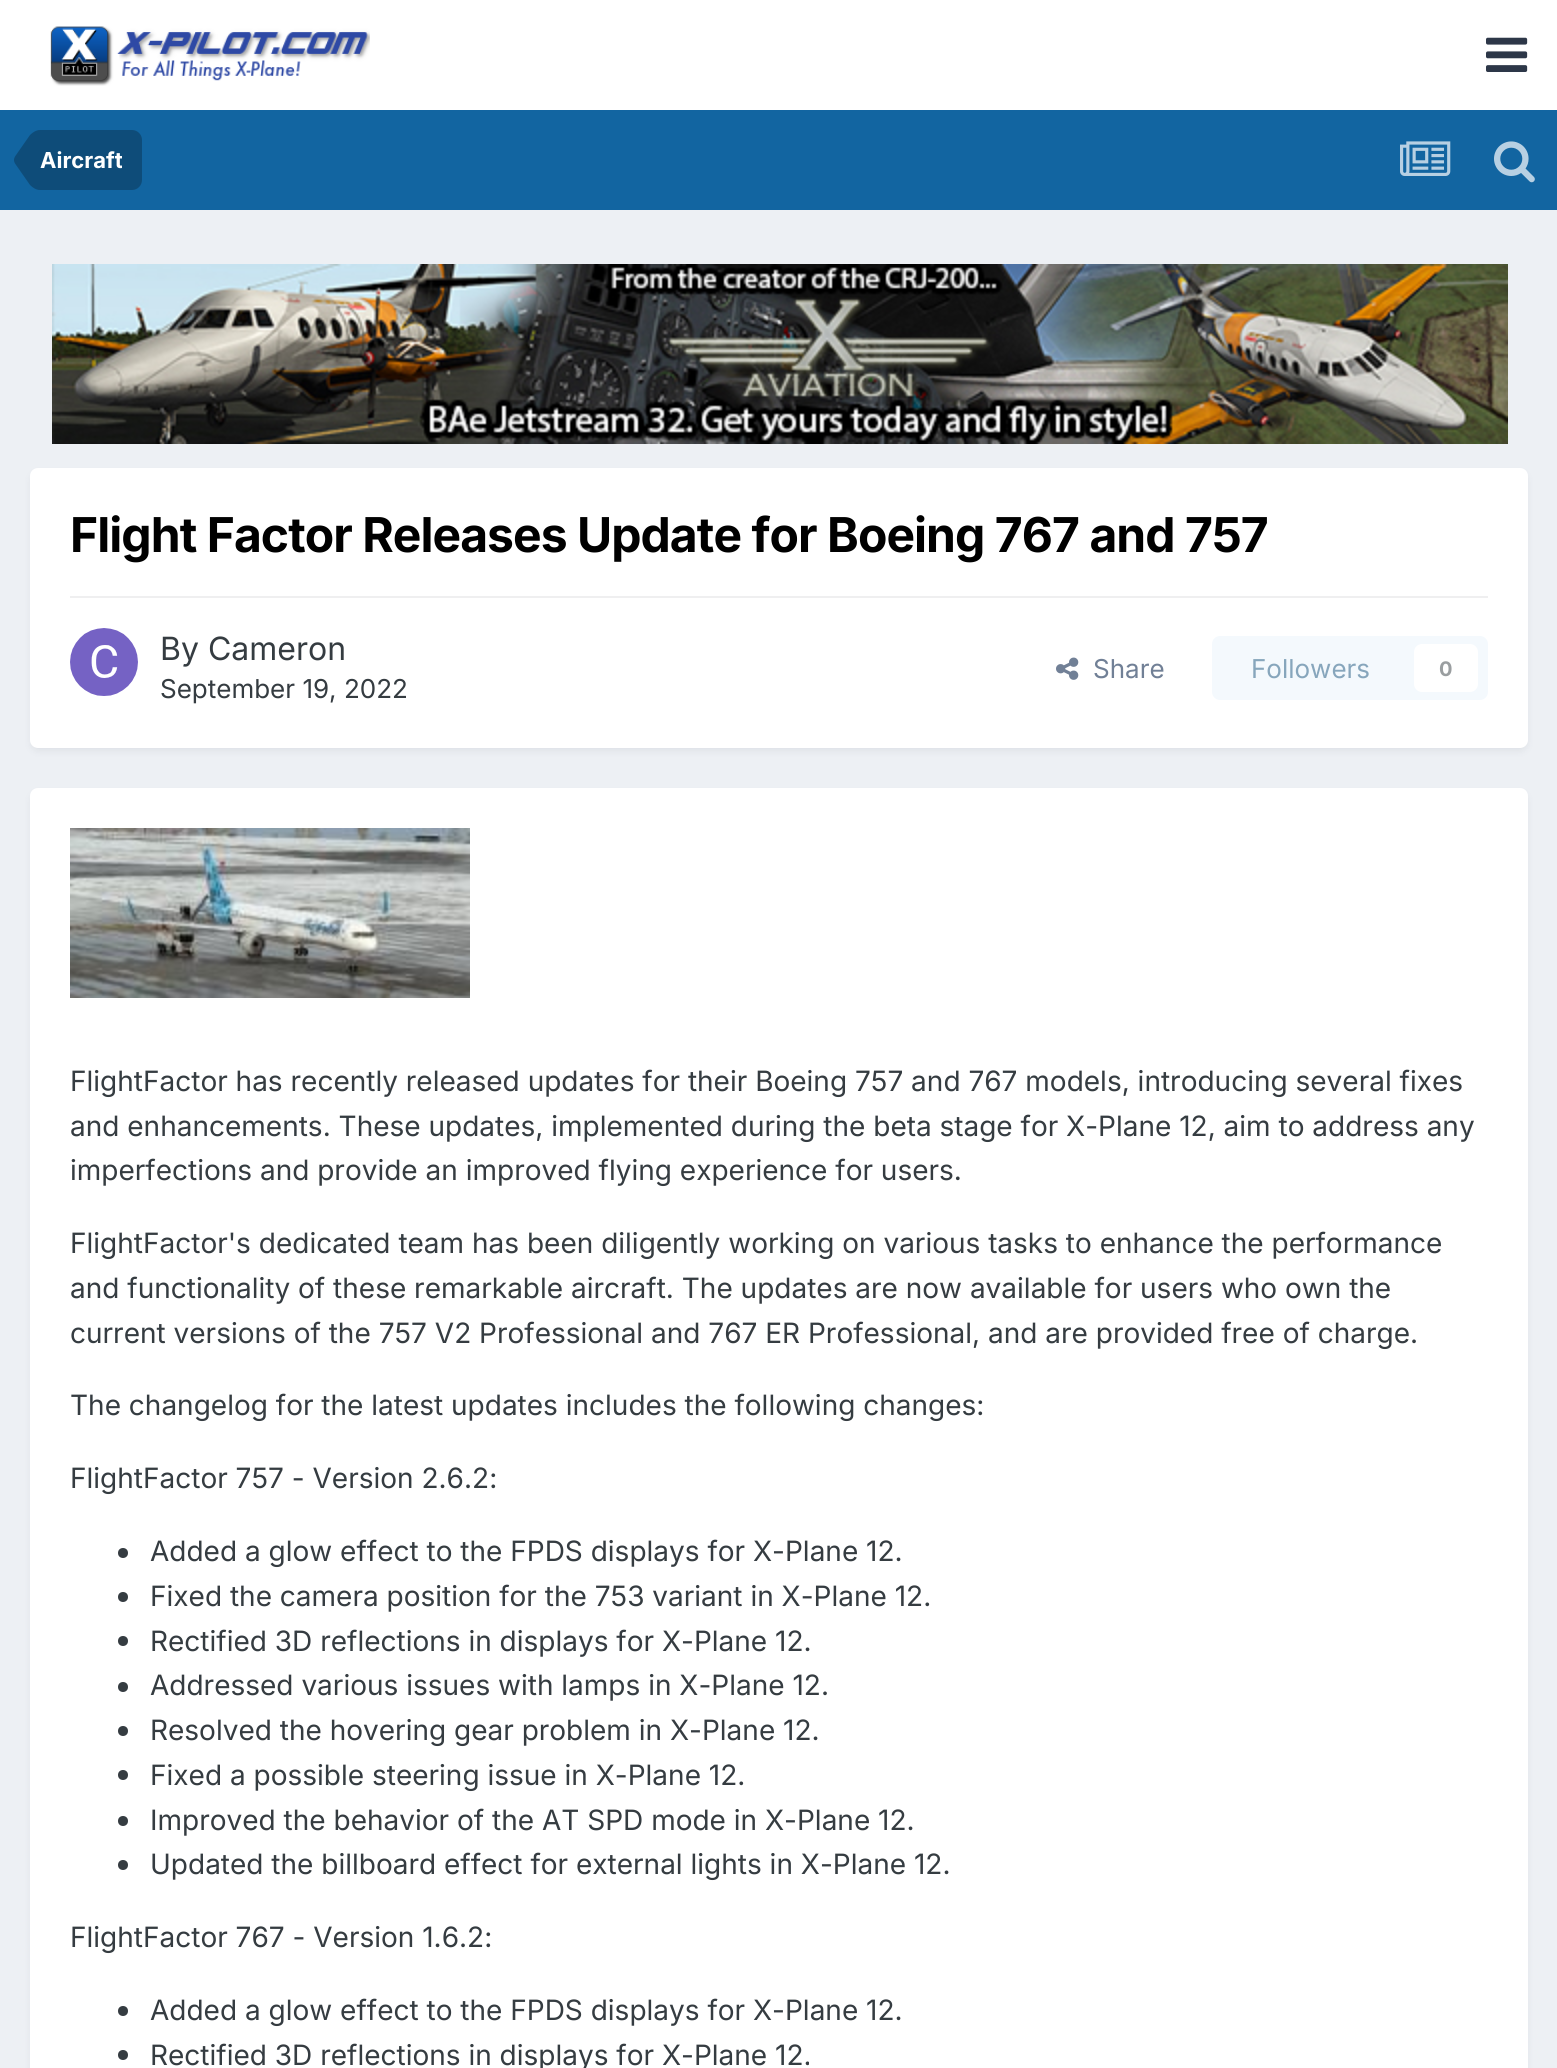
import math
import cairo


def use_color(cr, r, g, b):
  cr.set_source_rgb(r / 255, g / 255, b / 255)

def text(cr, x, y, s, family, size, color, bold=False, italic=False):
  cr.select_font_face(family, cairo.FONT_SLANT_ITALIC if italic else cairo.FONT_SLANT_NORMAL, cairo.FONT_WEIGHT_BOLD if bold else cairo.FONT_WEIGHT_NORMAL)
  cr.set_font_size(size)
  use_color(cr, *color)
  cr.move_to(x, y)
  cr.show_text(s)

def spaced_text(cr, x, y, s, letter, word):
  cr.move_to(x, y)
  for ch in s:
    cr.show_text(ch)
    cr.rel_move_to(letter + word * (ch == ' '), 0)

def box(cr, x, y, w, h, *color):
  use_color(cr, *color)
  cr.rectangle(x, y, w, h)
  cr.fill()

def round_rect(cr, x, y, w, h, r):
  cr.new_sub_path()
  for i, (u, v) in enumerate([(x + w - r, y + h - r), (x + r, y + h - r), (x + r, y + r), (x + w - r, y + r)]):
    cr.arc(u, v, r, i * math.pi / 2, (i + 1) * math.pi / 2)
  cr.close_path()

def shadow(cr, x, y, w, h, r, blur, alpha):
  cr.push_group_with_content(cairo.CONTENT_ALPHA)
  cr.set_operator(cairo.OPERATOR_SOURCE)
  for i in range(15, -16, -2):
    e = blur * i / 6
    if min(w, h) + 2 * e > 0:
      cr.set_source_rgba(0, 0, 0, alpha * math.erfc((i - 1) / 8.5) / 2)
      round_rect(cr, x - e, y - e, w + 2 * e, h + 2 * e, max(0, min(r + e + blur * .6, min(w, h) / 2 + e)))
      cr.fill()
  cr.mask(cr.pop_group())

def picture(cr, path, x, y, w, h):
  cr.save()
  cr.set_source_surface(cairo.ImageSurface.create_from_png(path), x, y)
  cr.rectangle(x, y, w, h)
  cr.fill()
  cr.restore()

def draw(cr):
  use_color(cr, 237, 240, 244)
  cr.paint()
  box(cr, 0, 0, 1557, 110, 255, 255, 255)
  picture(cr, "img_01.png", 50, 26, 320, 60)
  picture(cr, "img_02.png", 1486, 37, 42, 35)
  box(cr, 0, 110, 1557, 100, 18, 101, 161)
  use_color(cr, 14, 76, 121)
  cr.new_path()
  cr.move_to(40, 130)
  cr.line_to(132, 130)
  cr.curve_to(137.5, 130, 142, 134.5, 142, 140)
  cr.line_to(142, 180)
  cr.curve_to(142, 185.5, 137.5, 190, 132, 190)
  cr.line_to(40, 190)
  cr.close_path()
  cr.fill()
  cr.new_path()
  cr.move_to(40, 160)
  cr.line_to(40, 190)
  cr.curve_to(36.5, 190, 33, 188, 30, 185)
  cr.line_to(15, 163.5)
  cr.curve_to(14.5, 162.5, 14, 161.5, 14, 160)
  cr.close_path()
  cr.move_to(40, 160)
  cr.line_to(14, 160)
  cr.curve_to(14, 158.5, 14.5, 157.5, 15, 156.5)
  cr.line_to(30, 135)
  cr.curve_to(33, 132, 36.5, 130, 40, 130)
  cr.close_path()
  cr.fill()
  picture(cr, "img_03.png", 1400, 141, 51, 35)
  picture(cr, "img_04.png", 1494, 141, 41, 42)
  picture(cr, "img_05.png", 52, 264, 1456, 180)
  use_color(cr, 45, 55, 72)
  shadow(cr, 32, 474, 1494, 276, 6, 4, 0.1)
  use_color(cr, 255, 255, 255)
  round_rect(cr, 30, 468, 1498, 280, 8)
  cr.fill()
  box(cr, 70, 596, 1418, 2, 239, 239, 240)
  picture(cr, "img_06.png", 70, 628, 68, 68)
  picture(cr, "img_07.png", 1056, 657, 23, 23)
  use_color(cr, 244, 249, 253)
  round_rect(cr, 1212, 636, 276, 64, 8)
  cr.fill()
  use_color(cr, 255, 255, 255)
  round_rect(cr, 1414, 644, 64, 48, 8)
  cr.fill()
  use_color(cr, 45, 55, 72)
  shadow(cr, 32, 794, 1494, 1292, 6, 4, 0.1)
  use_color(cr, 255, 255, 255)
  round_rect(cr, 30, 788, 1498, 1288, 8)
  cr.fill()
  picture(cr, "img_08.png", 70, 828, 400, 170)
  use_color(cr, 53, 60, 65)
  cr.arc(123, 1553, 5, 0, 2 * math.pi)
  cr.fill()
  cr.arc(123, 1597, 5, 0, 2 * math.pi)
  cr.fill()
  cr.arc(123, 1641, 5, 0, 2 * math.pi)
  cr.fill()
  cr.arc(123, 1687, 5, 0, 2 * math.pi)
  cr.fill()
  cr.arc(123, 1731, 5, 0, 2 * math.pi)
  cr.fill()
  cr.arc(123, 1775, 5, 0, 2 * math.pi)
  cr.fill()
  cr.arc(123, 1821, 5, 0, 2 * math.pi)
  cr.fill()
  cr.arc(123, 1865, 5, 0, 2 * math.pi)
  cr.fill()
  cr.arc(123, 2011, 5, 0, 2 * math.pi)
  cr.fill()
  cr.arc(123, 2055, 5, 0, 2 * math.pi)
  cr.fill()
  cr.save()
  cr.rectangle(40, 130, 82, 60)
  cr.clip()
  text(cr, 40, 168, "Aircraft", "Inter", 22, (255, 255, 255), bold=True)
  cr.restore()
  cr.select_font_face("Inter", cairo.FONT_SLANT_NORMAL, cairo.FONT_WEIGHT_BOLD)
  cr.set_font_size(48)
  use_color(cr, 0, 0, 0)
  spaced_text(cr, 70, 552, "Flight Factor Releases Update for Boeing 767 and 757", -0.95, 0)
  text(cr, 160, 660, "By Cameron", "Inter", 32, (53, 60, 65))
  text(cr, 160, 698, "September 19, 2022", "Inter", 26, (53, 60, 65))
  text(cr, 1093, 678, "Share", "Inter", 26, (113, 128, 150))
  text(cr, 1251, 678, "Followers", "Inter", 26, (135, 166, 188))
  text(cr, 1439, 676, "0", "Inter", 20, (154, 158, 160), bold=True)
  text(cr, 70, 1091, "FlightFactor has recently released updates for their Boeing 757 and 767 models, introducing several fixes", "Inter", 28, (53, 60, 65))
  text(cr, 70, 1136, "and enhancements. These updates, implemented during the beta stage for X-Plane 12, aim to address any", "Inter", 28, (53, 60, 65))
  text(cr, 70, 1180, "imperfections and provide an improved flying experience for users.", "Inter", 28, (53, 60, 65))
  text(cr, 70, 1253, "FlightFactor's dedicated team has been diligently working on various tasks to enhance the performance", "Inter", 28, (53, 60, 65))
  text(cr, 70, 1298, "and functionality of these remarkable aircraft. The updates are now available for users who own the", "Inter", 28, (53, 60, 65))
  text(cr, 70, 1343, "current versions of the 757 V2 Professional and 767 ER Professional, and are provided free of charge.", "Inter", 28, (53, 60, 65))
  text(cr, 70, 1415, "The changelog for the latest updates includes the following changes:", "Inter", 28, (53, 60, 65))
  text(cr, 70, 1488, "FlightFactor 757 - Version 2.6.2:", "Inter", 28, (53, 60, 65))
  text(cr, 150, 1561, "Added a glow effect to the FPDS displays for X-Plane 12.", "Inter", 28, (53, 60, 65))
  text(cr, 150, 1606, "Fixed the camera position for the 753 variant in X-Plane 12.", "Inter", 28, (53, 60, 65))
  text(cr, 150, 1651, "Rectified 3D reflections in displays for X-Plane 12.", "Inter", 28, (53, 60, 65))
  text(cr, 150, 1695, "Addressed various issues with lamps in X-Plane 12.", "Inter", 28, (53, 60, 65))
  text(cr, 150, 1740, "Resolved the hovering gear problem in X-Plane 12.", "Inter", 28, (53, 60, 65))
  text(cr, 150, 1785, "Fixed a possible steering issue in X-Plane 12.", "Inter", 28, (53, 60, 65))
  text(cr, 150, 1830, "Improved the behavior of the AT SPD mode in X-Plane 12.", "Inter", 28, (53, 60, 65))
  text(cr, 150, 1874, "Updated the billboard effect for external lights in X-Plane 12.", "Inter", 28, (53, 60, 65))
  text(cr, 70, 1947, "FlightFactor 767 - Version 1.6.2:", "Inter", 28, (53, 60, 65))
  text(cr, 150, 2020, "Added a glow effect to the FPDS displays for X-Plane 12.", "Inter", 28, (53, 60, 65))
  text(cr, 150, 2065, "Rectified 3D reflections in displays for X-Plane 12.", "Inter", 28, (53, 60, 65))


surface = cairo.ImageSurface(cairo.FORMAT_RGB24, 1557, 2068)
cr = cairo.Context(surface)
options = cairo.FontOptions()
options.set_hint_metrics(cairo.HINT_METRICS_OFF)
options.set_hint_style(cairo.HINT_STYLE_NONE)
cr.set_font_options(options)
cr.set_miter_limit(4)
draw(cr)
surface.write_to_png("out.png")
